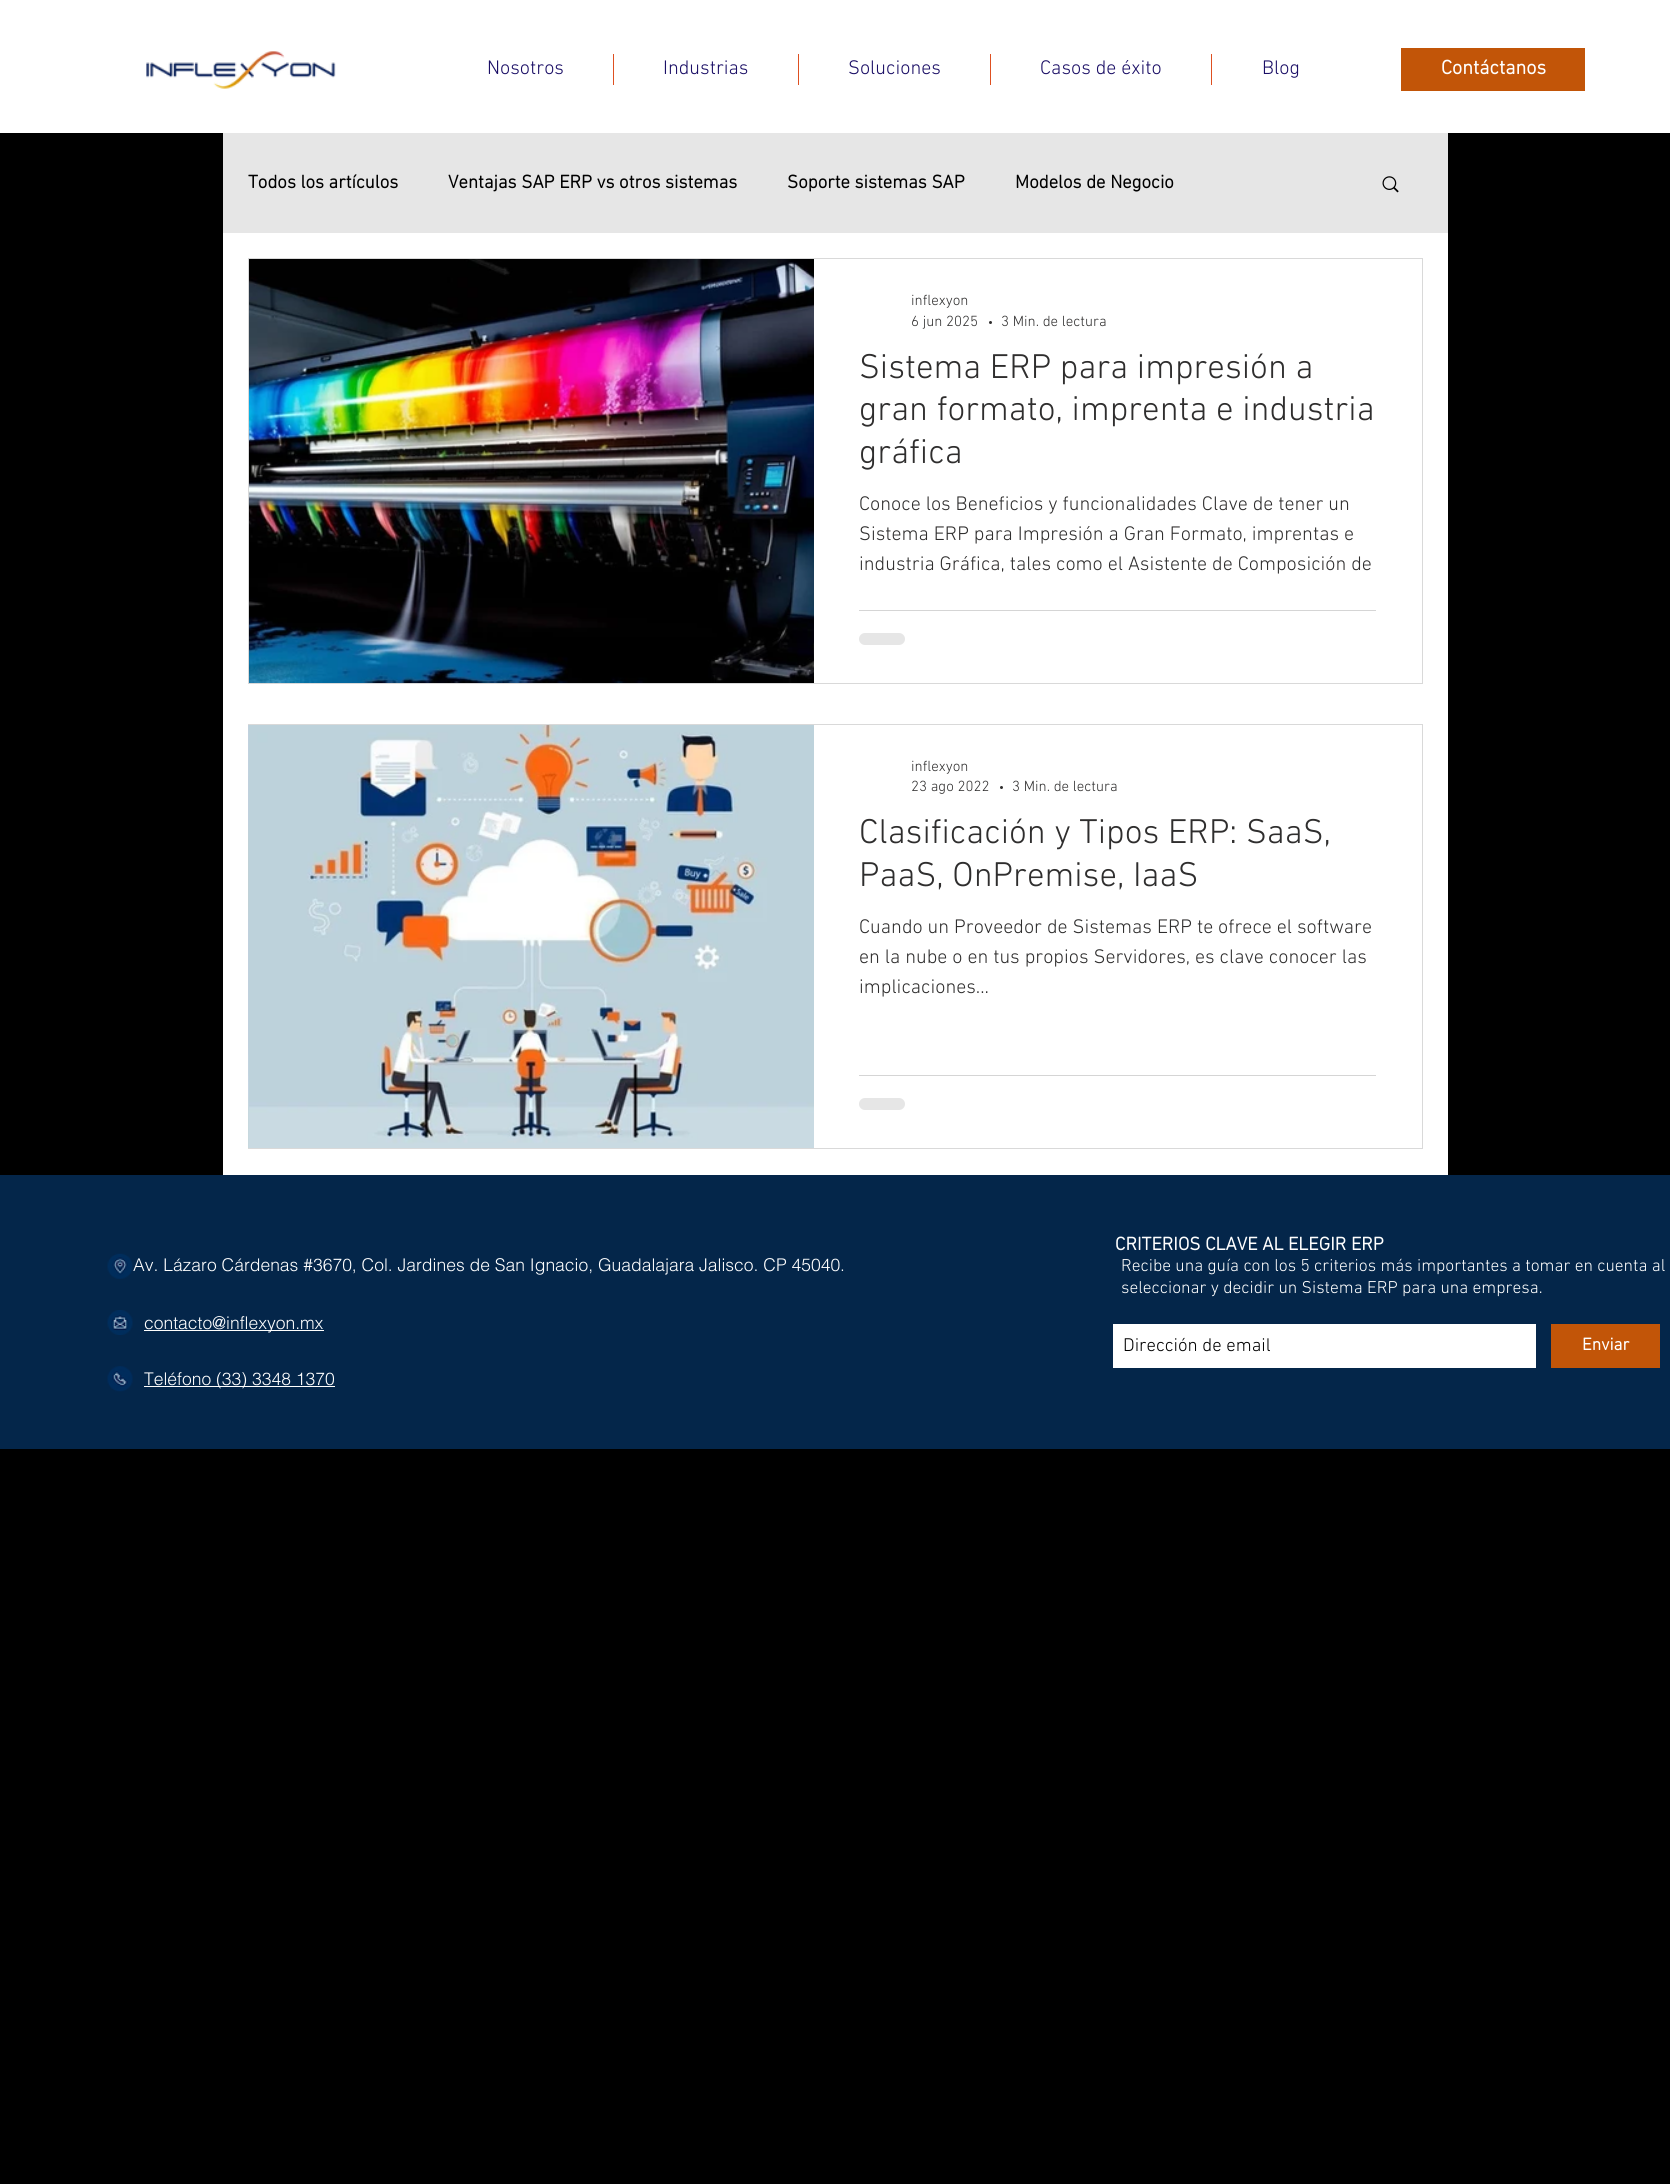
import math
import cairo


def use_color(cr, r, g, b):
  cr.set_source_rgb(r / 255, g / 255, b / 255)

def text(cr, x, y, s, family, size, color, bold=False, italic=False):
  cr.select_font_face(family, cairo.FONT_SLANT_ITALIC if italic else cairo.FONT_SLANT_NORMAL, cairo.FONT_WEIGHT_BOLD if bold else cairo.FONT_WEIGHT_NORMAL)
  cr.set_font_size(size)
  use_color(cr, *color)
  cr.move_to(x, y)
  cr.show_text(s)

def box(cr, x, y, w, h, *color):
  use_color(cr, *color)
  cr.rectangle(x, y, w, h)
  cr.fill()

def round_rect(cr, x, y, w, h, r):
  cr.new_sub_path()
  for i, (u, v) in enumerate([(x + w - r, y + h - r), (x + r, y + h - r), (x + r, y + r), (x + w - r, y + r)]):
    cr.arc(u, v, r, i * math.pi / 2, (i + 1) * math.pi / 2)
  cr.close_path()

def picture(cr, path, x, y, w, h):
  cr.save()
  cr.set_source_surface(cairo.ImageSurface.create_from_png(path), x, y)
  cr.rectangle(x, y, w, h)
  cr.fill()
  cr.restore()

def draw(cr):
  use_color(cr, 0, 0, 0)
  cr.paint()
  box(cr, 0, 0, 1670, 133, 255, 255, 255)
  picture(cr, "img_01.png", 146, 51, 190, 38)
  box(cr, 613, 54, 1, 31, 222, 80, 33)
  box(cr, 798, 54, 1, 31, 222, 80, 33)
  box(cr, 990, 54, 1, 31, 222, 80, 33)
  box(cr, 1211, 54, 1, 31, 222, 80, 33)
  box(cr, 1401, 48, 184, 43, 194, 85, 8)
  box(cr, 223, 233, 1225, 942, 255, 255, 255)
  box(cr, 223, 133, 1225, 100, 230, 230, 230)
  picture(cr, "img_02.png", 1382, 176, 17, 17)
  cr.rectangle(248.5, 258.5, 1174, 425)
  use_color(cr, 217, 217, 217)
  cr.set_line_width(1)
  cr.stroke()
  picture(cr, "img_03.png", 249, 259, 565, 424)
  use_color(cr, 47, 46, 46)
  cr.arc(990.5, 322.5, 1.5, 0, 2 * math.pi)
  cr.fill()
  box(cr, 859, 610, 517, 1, 213, 213, 213)
  use_color(cr, 230, 230, 230)
  round_rect(cr, 859, 633, 46, 12, 6)
  cr.fill()
  cr.rectangle(248.5, 724.5, 1174, 424)
  use_color(cr, 217, 217, 217)
  cr.stroke()
  picture(cr, "img_04.png", 248, 725, 1, 423)
  picture(cr, "img_05.png", 249, 725, 565, 423)
  use_color(cr, 47, 46, 46)
  cr.arc(1001.5, 787.5, 1.5, 0, 2 * math.pi)
  cr.fill()
  box(cr, 859, 1075, 517, 1, 213, 213, 213)
  use_color(cr, 230, 230, 230)
  round_rect(cr, 859, 1098, 46, 12, 6)
  cr.fill()
  box(cr, 0, 1175, 1670, 274, 4, 38, 74)
  picture(cr, "img_06.png", 107, 1253, 26, 26)
  box(cr, 1113, 1324, 423, 44, 255, 255, 255)
  box(cr, 1551, 1324, 109, 44, 194, 85, 8)
  picture(cr, "img_07.png", 107, 1310, 26, 25)
  box(cr, 144, 1330, 180, 1, 255, 255, 254)
  picture(cr, "img_08.png", 107, 1366, 26, 26)
  box(cr, 144, 1386, 191, 1, 255, 255, 254)
  text(cr, 487, 74, "Nosotros", "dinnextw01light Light", 20, (27, 15, 102))
  text(cr, 663, 74, "Industrias", "dinnextw01light Light", 20, (27, 15, 102))
  text(cr, 848, 74, "Soluciones", "dinnextw01light Light", 20, (27, 15, 102))
  text(cr, 1040, 74, "Casos de éxito", "dinnextw01light Light", 20, (27, 15, 102))
  text(cr, 1262, 74, "Blog", "dinnextw01light Light", 20, (27, 15, 102))
  text(cr, 1441, 74, "Contáctanos", "dinnextw01light", 20, (255, 255, 255), bold=True)
  text(cr, 248, 188, "Todos los artículos", "dinnextw01light", 18.75, (0, 0, 0), bold=True)
  text(cr, 448, 188, "Ventajas SAP ERP vs otros sistemas", "dinnextw01light", 18.75, (0, 0, 0), bold=True)
  text(cr, 787, 188, "Soporte sistemas SAP", "dinnextw01light", 18.75, (0, 0, 0), bold=True)
  text(cr, 1015, 188, "Modelos de Negocio", "dinnextw01light", 18.75, (0, 0, 0), bold=True)
  text(cr, 911, 305, "inflexyon", "dinnextw01light Light", 15, (47, 46, 46))
  text(cr, 911, 326, "6 jun 2025", "dinnextw01light Light", 15, (47, 46, 46))
  text(cr, 1001, 326, "3 Min. de lectura", "dinnextw01light Light", 15, (47, 46, 46))
  text(cr, 859, 378, "Sistema ERP para impresión a", "dinnextw01light Light", 35, (47, 46, 46))
  text(cr, 859, 420, "gran formato, imprenta e industria", "dinnextw01light Light", 35, (47, 46, 46))
  text(cr, 859, 463, "gráfica", "dinnextw01light Light", 35, (47, 46, 46))
  text(cr, 859, 510, "Conoce los Beneficios y funcionalidades Clave de tener un", "dinnextw01light Light", 20, (47, 46, 46))
  text(cr, 859, 540, "Sistema ERP para Impresión a Gran Formato, imprentas e", "dinnextw01light Light", 20, (47, 46, 46))
  text(cr, 859, 570, "industria Gráfica, tales como el Asistente de Composición de", "dinnextw01light Light", 20, (47, 46, 46))
  text(cr, 911, 771, "inflexyon", "dinnextw01light Light", 15, (47, 46, 46))
  text(cr, 911, 791, "23 ago 2022", "dinnextw01light Light", 15, (47, 46, 46))
  text(cr, 1012, 791, "3 Min. de lectura", "dinnextw01light Light", 15, (47, 46, 46))
  text(cr, 859, 843, "Clasificación y Tipos ERP: SaaS,", "dinnextw01light Light", 35, (47, 46, 46))
  text(cr, 859, 886, "PaaS, OnPremise, IaaS", "dinnextw01light Light", 35, (47, 46, 46))
  text(cr, 859, 933, "Cuando un Proveedor de Sistemas ERP te ofrece el software", "dinnextw01light Light", 20, (47, 46, 46))
  text(cr, 859, 963, "en la nube o en tus propios Servidores, es clave conocer las", "dinnextw01light Light", 20, (47, 46, 46))
  text(cr, 859, 993, "implicaciones...", "dinnextw01light Light", 20, (47, 46, 46))
  text(cr, 133, 1271, "Av. Lázaro Cárdenas #3670, Col. Jardines de San Ignacio, Guadalajara Jalisco. CP 45040.", "helvetica Light", 17.5, (255, 255, 255))
  text(cr, 1115, 1250, "CRITERIOS CLAVE AL ELEGIR ERP", "dinnextw01light", 18.75, (255, 255, 255), bold=True)
  text(cr, 1121, 1271, "Recibe una guía con los 5 criterios más importantes a tomar en cuenta al", "dinnextw01light Light", 17.5, (255, 255, 255))
  text(cr, 1121, 1293, "seleccionar y decidir un Sistema ERP para una empresa.", "dinnextw01light Light", 17.5, (255, 255, 255))
  text(cr, 1123, 1351, "Dirección de email", "dinnextw01light Light", 18.75, (0, 0, 0))
  text(cr, 1582, 1350, "Enviar", "dinnextw01light", 17.5, (255, 255, 255), bold=True)
  text(cr, 144, 1329, "contacto@inflexyon.mx", "helvetica Light", 17.5, (255, 255, 255))
  text(cr, 144, 1385, "Teléfono (33) 3348 1370", "helvetica Light", 17.5, (255, 255, 255))


surface = cairo.ImageSurface(cairo.FORMAT_RGB24, 1670, 2184)
cr = cairo.Context(surface)
options = cairo.FontOptions()
options.set_hint_metrics(cairo.HINT_METRICS_OFF)
options.set_hint_style(cairo.HINT_STYLE_NONE)
cr.set_font_options(options)
cr.set_miter_limit(4)
draw(cr)
surface.write_to_png("out.png")
